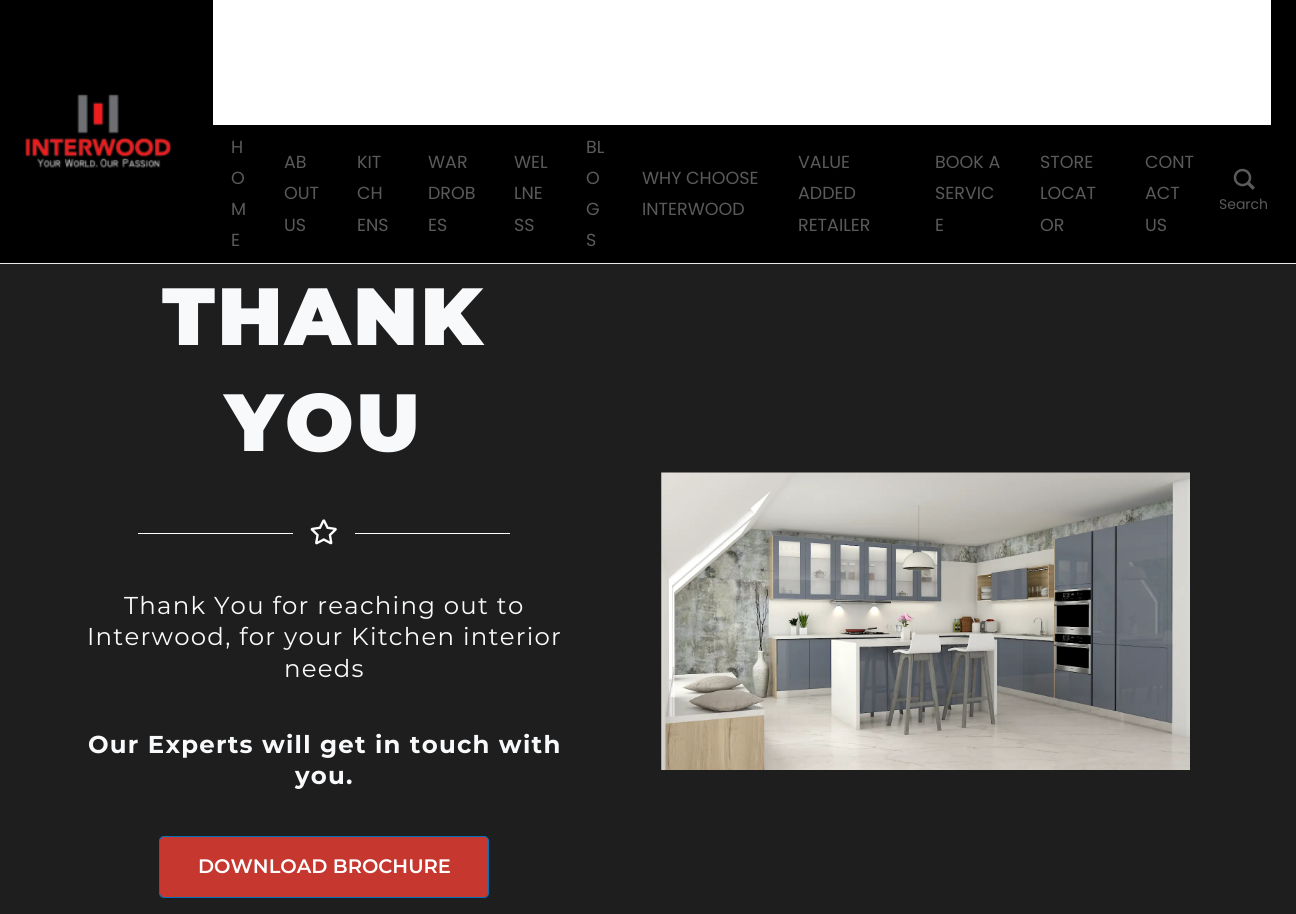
import math
import cairo


def use_color(cr, r, g, b):
  cr.set_source_rgb(r / 255, g / 255, b / 255)

def text(cr, x, y, s, family, size, color, bold=False, italic=False):
  cr.select_font_face(family, cairo.FONT_SLANT_ITALIC if italic else cairo.FONT_SLANT_NORMAL, cairo.FONT_WEIGHT_BOLD if bold else cairo.FONT_WEIGHT_NORMAL)
  cr.set_font_size(size)
  use_color(cr, *color)
  cr.move_to(x, y)
  cr.show_text(s)

def spaced_text(cr, x, y, s, letter, word):
  cr.move_to(x, y)
  for ch in s:
    cr.show_text(ch)
    cr.rel_move_to(letter + word * (ch == ' '), 0)

def box(cr, x, y, w, h, *color):
  use_color(cr, *color)
  cr.rectangle(x, y, w, h)
  cr.fill()

def round_rect(cr, x, y, w, h, r):
  cr.new_sub_path()
  for i, (u, v) in enumerate([(x + w - r, y + h - r), (x + r, y + h - r), (x + r, y + r), (x + w - r, y + r)]):
    cr.arc(u, v, r, i * math.pi / 2, (i + 1) * math.pi / 2)
  cr.close_path()

def picture(cr, path, x, y, w, h):
  cr.save()
  cr.set_source_surface(cairo.ImageSurface.create_from_png(path), x, y)
  cr.rectangle(x, y, w, h)
  cr.fill()
  cr.restore()

def draw(cr):
  use_color(cr, 30, 30, 30)
  cr.paint()
  box(cr, 0, 0, 1296, 263, 0, 0, 0)
  box(cr, 0, 263, 1296, 1, 234, 234, 234)
  picture(cr, "img_01.png", 25, 94, 147, 74)
  box(cr, 213, 0, 1058, 125, 255, 255, 255)
  picture(cr, "img_02.png", 1233, 168, 22, 22)
  box(cr, 138, 533, 155, 1, 255, 255, 255)
  picture(cr, "img_03.png", 310, 519, 27, 26)
  box(cr, 355, 533, 155, 1, 255, 255, 255)
  use_color(cr, 197, 55, 47)
  round_rect(cr, 159.5, 836.5, 329, 61, 4.5)
  cr.fill_preserve()
  use_color(cr, 1, 112, 185)
  cr.set_line_width(1)
  cr.stroke()
  picture(cr, "img_04.png", 661, 472, 529, 298)
  text(cr, 231, 153, "H", "Poppins", 17.5, (90, 90, 90))
  text(cr, 231, 184, "O", "Poppins", 17.5, (90, 90, 90))
  text(cr, 231, 215, "M", "Poppins", 17.5, (90, 90, 90))
  text(cr, 231, 246, "E", "Poppins", 17.5, (90, 90, 90))
  text(cr, 284, 168, "AB", "Poppins", 17.5, (90, 90, 90))
  text(cr, 284, 199, "OUT", "Poppins", 17.5, (90, 90, 90))
  text(cr, 284, 231, "US", "Poppins", 17.5, (90, 90, 90))
  text(cr, 357, 168, "KIT", "Poppins", 17.5, (90, 90, 90))
  text(cr, 357, 199, "CH", "Poppins", 17.5, (90, 90, 90))
  text(cr, 357, 231, "ENS", "Poppins", 17.5, (90, 90, 90))
  text(cr, 428, 168, "WAR", "Poppins", 17.5, (90, 90, 90))
  text(cr, 428, 199, "DROB", "Poppins", 17.5, (90, 90, 90))
  text(cr, 428, 231, "ES", "Poppins", 17.5, (90, 90, 90))
  text(cr, 514, 168, "WEL", "Poppins", 17.5, (90, 90, 90))
  text(cr, 514, 199, "LNE", "Poppins", 17.5, (90, 90, 90))
  text(cr, 514, 231, "SS", "Poppins", 17.5, (90, 90, 90))
  text(cr, 586, 153, "BL", "Poppins", 17.5, (90, 90, 90))
  text(cr, 586, 184, "O", "Poppins", 17.5, (90, 90, 90))
  text(cr, 586, 215, "G", "Poppins", 17.5, (90, 90, 90))
  text(cr, 586, 246, "S", "Poppins", 17.5, (90, 90, 90))
  text(cr, 642, 184, "WHY CHOOSE", "Poppins", 17.5, (90, 90, 90))
  text(cr, 642, 215, "INTERWOOD", "Poppins", 17.5, (90, 90, 90))
  text(cr, 798, 168, "VALUE", "Poppins", 17.5, (90, 90, 90))
  text(cr, 798, 199, "ADDED", "Poppins", 17.5, (90, 90, 90))
  text(cr, 798, 231, "RETAILER", "Poppins", 17.5, (90, 90, 90))
  text(cr, 935, 168, "BOOK A", "Poppins", 17.5, (90, 90, 90))
  text(cr, 935, 199, "SERVIC", "Poppins", 17.5, (90, 90, 90))
  text(cr, 935, 231, "E", "Poppins", 17.5, (90, 90, 90))
  text(cr, 1040, 168, "STORE", "Poppins", 17.5, (90, 90, 90))
  text(cr, 1040, 199, "LOCAT", "Poppins", 17.5, (90, 90, 90))
  text(cr, 1040, 231, "OR", "Poppins", 17.5, (90, 90, 90))
  text(cr, 1145, 168, "CONT", "Poppins", 17.5, (90, 90, 90))
  text(cr, 1145, 199, "ACT", "Poppins", 17.5, (90, 90, 90))
  text(cr, 1145, 231, "US", "Poppins", 17.5, (90, 90, 90))
  text(cr, 1219, 209, "Search", "Poppins", 14, (90, 90, 90))
  cr.select_font_face("Montserrat Black")
  cr.set_font_size(81)
  use_color(cr, 247, 249, 251)
  spaced_text(cr, 162, 345, "THANK", 2.5, 0)
  spaced_text(cr, 225, 451, "YOU", 2.5, 0)
  cr.select_font_face("Montserrat")
  cr.set_font_size(24.4)
  spaced_text(cr, 124, 614, "Thank You for reaching out to", 1.25, 0)
  spaced_text(cr, 87, 645, "Interwood, for your Kitchen interior", 1.25, 0)
  spaced_text(cr, 284, 677, "needs", 1.25, 0)
  cr.select_font_face("Montserrat", cairo.FONT_SLANT_NORMAL, cairo.FONT_WEIGHT_BOLD)
  spaced_text(cr, 88, 753, "Our Experts will get in touch with", 1.25, 0)
  spaced_text(cr, 295, 784, "you.", 1.25, 0)
  text(cr, 198, 873, "DOWNLOAD BROCHURE", "Montserrat SemiBold", 19.5, (255, 255, 255))


surface = cairo.ImageSurface(cairo.FORMAT_RGB24, 1296, 914)
cr = cairo.Context(surface)
options = cairo.FontOptions()
options.set_hint_metrics(cairo.HINT_METRICS_OFF)
options.set_hint_style(cairo.HINT_STYLE_NONE)
cr.set_font_options(options)
cr.set_miter_limit(4)
draw(cr)
surface.write_to_png("out.png")
